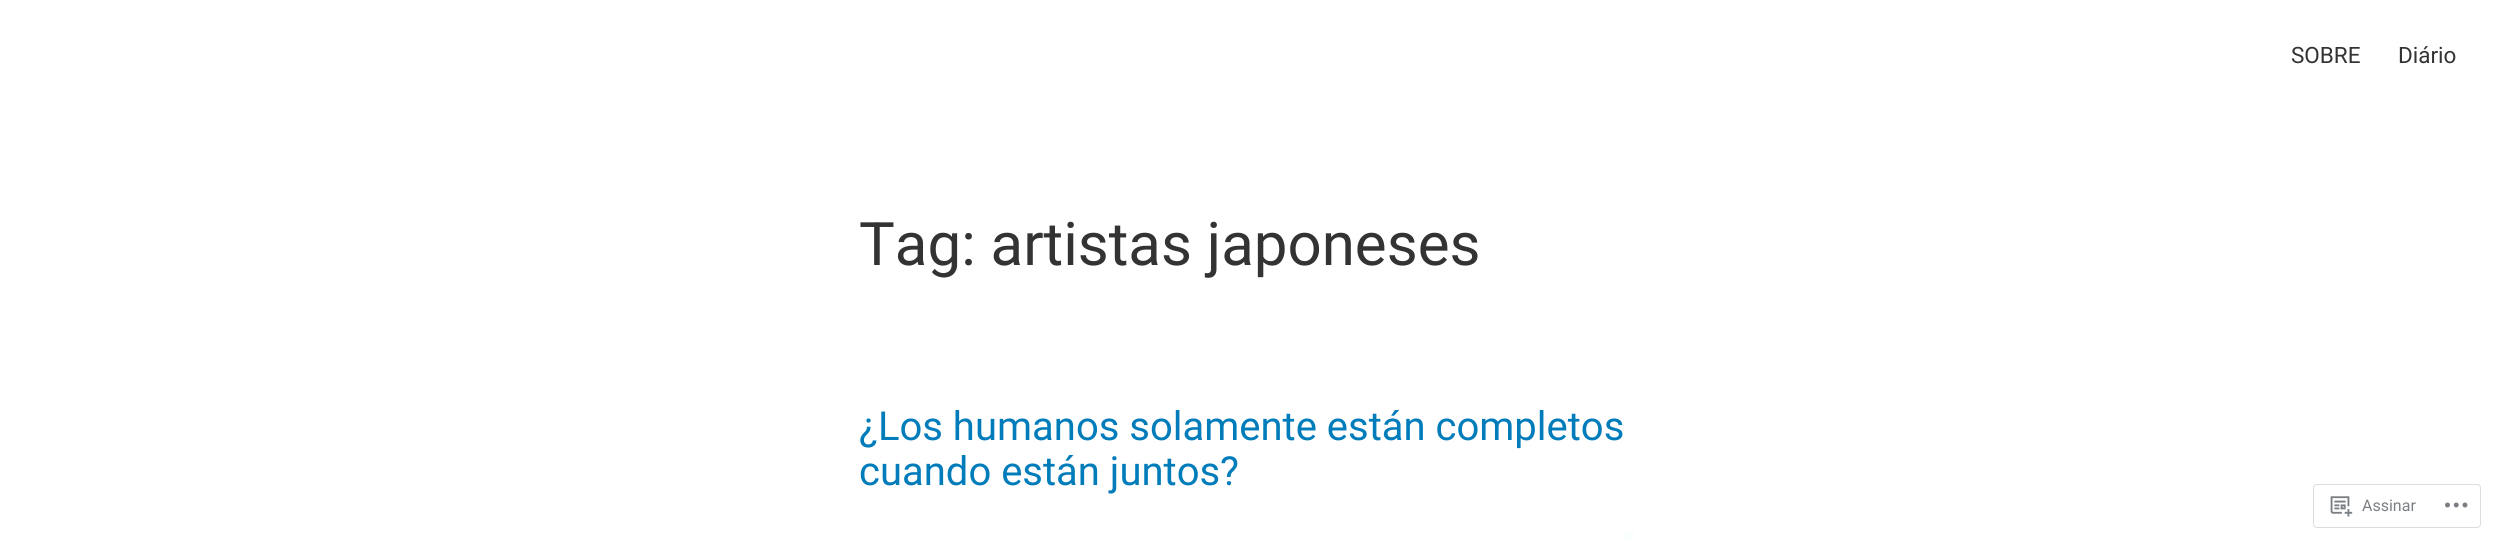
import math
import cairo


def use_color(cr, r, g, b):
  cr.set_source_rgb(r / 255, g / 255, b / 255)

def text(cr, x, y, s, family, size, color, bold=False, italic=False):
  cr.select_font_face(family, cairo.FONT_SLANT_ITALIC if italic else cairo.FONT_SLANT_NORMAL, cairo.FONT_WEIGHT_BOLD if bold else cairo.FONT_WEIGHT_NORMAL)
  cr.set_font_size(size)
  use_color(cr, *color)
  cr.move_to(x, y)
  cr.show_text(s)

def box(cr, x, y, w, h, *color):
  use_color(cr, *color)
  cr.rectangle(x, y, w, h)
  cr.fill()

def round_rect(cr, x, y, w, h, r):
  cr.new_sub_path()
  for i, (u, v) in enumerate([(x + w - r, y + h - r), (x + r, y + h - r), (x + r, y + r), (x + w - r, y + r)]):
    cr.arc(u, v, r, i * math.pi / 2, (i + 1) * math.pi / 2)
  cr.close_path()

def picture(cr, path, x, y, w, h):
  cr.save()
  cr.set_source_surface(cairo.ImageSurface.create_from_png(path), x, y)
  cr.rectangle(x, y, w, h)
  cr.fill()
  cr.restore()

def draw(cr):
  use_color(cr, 255, 255, 255)
  cr.paint()
  box(cr, 1625, 531, 9, 9, 250, 254, 255)
  round_rect(cr, 2313.5, 484.5, 167, 43, 3.5)
  use_color(cr, 221, 221, 223)
  cr.set_line_width(1)
  cr.stroke()
  picture(cr, "img_01.png", 2330, 496, 23, 21)
  picture(cr, "img_02.png", 2445, 502, 23, 6)
  text(cr, 2291, 63, "SOBRE", "Roboto", 22.5, (51, 51, 51))
  text(cr, 2398, 63, "Diário", "Roboto", 22.5, (51, 51, 51))
  text(cr, 859, 265, "Tag: artistas japoneses", "Roboto", 60, (51, 51, 51))
  text(cr, 859, 440, "¿Los humanos solamente están completos", "Roboto", 40, (0, 124, 186))
  text(cr, 859, 485, "cuando están juntos?", "Roboto", 40, (0, 124, 186))
  text(cr, 2362, 511, "Assinar", "Roboto", 16, (123, 127, 133))


surface = cairo.ImageSurface(cairo.FORMAT_RGB24, 2493, 540)
cr = cairo.Context(surface)
options = cairo.FontOptions()
options.set_hint_metrics(cairo.HINT_METRICS_OFF)
options.set_hint_style(cairo.HINT_STYLE_NONE)
cr.set_font_options(options)
cr.set_miter_limit(4)
draw(cr)
surface.write_to_png("out.png")
